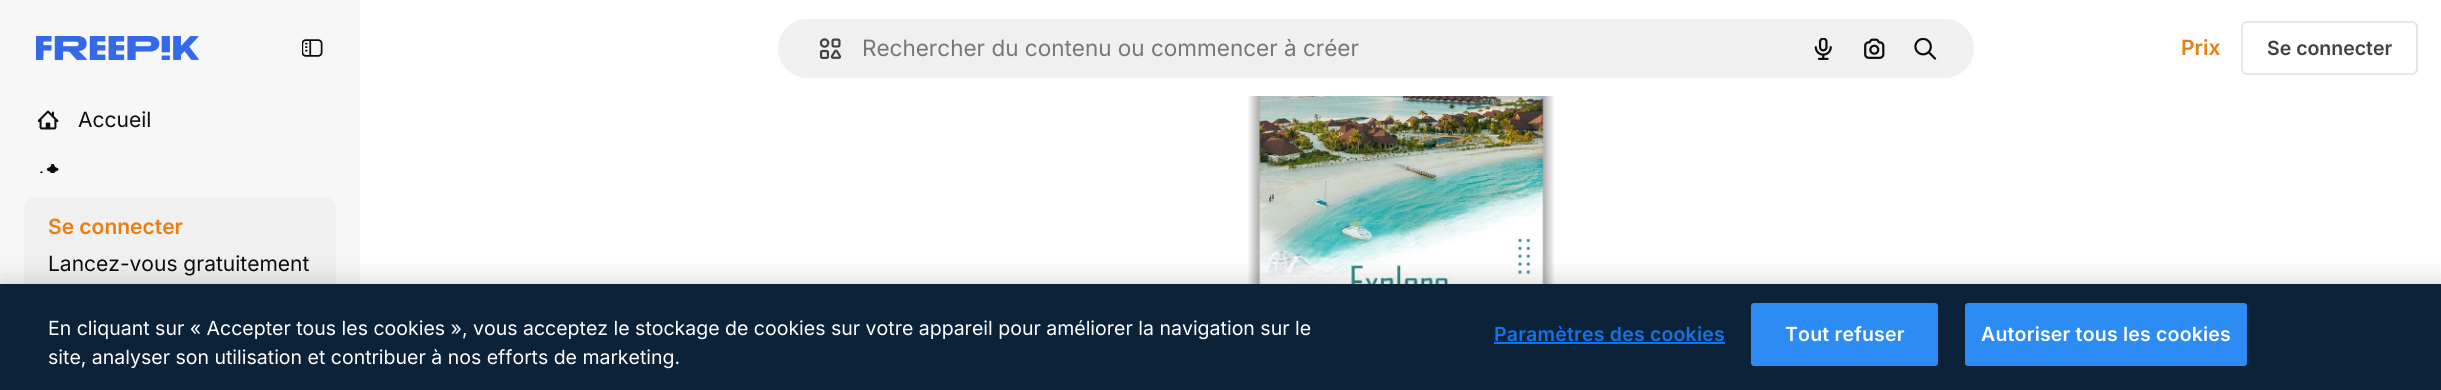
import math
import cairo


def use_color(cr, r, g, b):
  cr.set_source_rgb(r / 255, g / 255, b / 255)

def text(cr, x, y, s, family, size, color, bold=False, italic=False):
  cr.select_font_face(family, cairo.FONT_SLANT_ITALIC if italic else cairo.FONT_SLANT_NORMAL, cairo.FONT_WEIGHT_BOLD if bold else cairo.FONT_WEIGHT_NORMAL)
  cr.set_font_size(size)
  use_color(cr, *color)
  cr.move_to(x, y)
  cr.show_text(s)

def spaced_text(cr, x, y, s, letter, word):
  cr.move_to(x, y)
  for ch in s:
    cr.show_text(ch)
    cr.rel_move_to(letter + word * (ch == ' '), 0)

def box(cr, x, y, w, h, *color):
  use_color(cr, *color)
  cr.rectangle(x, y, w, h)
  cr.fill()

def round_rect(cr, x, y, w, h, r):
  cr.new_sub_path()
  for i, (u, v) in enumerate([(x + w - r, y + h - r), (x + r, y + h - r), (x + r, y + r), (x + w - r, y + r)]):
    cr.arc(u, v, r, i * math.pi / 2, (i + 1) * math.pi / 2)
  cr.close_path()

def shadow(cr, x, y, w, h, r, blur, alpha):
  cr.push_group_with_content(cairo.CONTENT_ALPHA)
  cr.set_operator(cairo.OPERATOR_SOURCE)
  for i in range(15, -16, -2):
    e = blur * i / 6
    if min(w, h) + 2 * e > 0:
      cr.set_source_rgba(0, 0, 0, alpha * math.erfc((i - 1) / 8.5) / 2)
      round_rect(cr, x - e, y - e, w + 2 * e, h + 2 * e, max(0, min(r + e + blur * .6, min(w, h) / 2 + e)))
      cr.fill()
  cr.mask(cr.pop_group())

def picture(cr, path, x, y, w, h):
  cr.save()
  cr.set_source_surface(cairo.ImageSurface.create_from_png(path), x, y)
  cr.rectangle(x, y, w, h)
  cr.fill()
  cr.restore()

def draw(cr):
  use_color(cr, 255, 255, 255)
  cr.paint()
  use_color(cr, 240, 240, 240)
  round_rect(cr, 777, 18, 1198, 61, 30.5)
  cr.fill_preserve()
  use_color(cr, 255, 255, 255)
  cr.stroke()
  picture(cr, "img_01.png", 819, 38, 23, 21)
  picture(cr, "img_02.png", 1814, 38, 18, 22)
  picture(cr, "img_03.png", 1864, 38, 21, 21)
  picture(cr, "img_04.png", 1914, 38, 23, 22)
  round_rect(cr, 2242, 22, 175, 52, 5)
  use_color(cr, 231, 231, 231)
  cr.stroke()
  picture(cr, "img_05.png", 1248, 96, 307, 188)
  box(cr, 0, 0, 360, 284, 247, 247, 247)
  picture(cr, "img_06.png", 36, 36, 163, 24)
  picture(cr, "img_07.png", 302, 39, 21, 18)
  picture(cr, "img_08.png", 38, 110, 21, 20)
  picture(cr, "img_09.png", 40, 164, 19, 9)
  use_color(cr, 240, 240, 240)
  round_rect(cr, 24, 197, 312, 97, 12)
  cr.fill()
  use_color(cr, 0, 0, 0)
  shadow(cr, 0, 284, 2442, 106, 0, 13.5, 0.2)
  box(cr, 0, 284, 2441, 106, 11, 34, 57)
  box(cr, 1494, 342, 231, 2, 18, 115, 235)
  use_color(cr, 44, 140, 244)
  round_rect(cr, 1752, 304, 185, 61, 2)
  cr.fill_preserve()
  cr.stroke()
  round_rect(cr, 1966, 304, 280, 61, 2)
  cr.fill_preserve()
  cr.stroke()
  text(cr, 862, 56, "Rechercher du contenu ou commencer à créer", "Inter", 22.5, (119, 119, 119))
  text(cr, 2181, 55, "Prix", "Inter SemiBold", 21, (234, 126, 17))
  text(cr, 2267, 55, "Se connecter", "Inter SemiBold", 19.5, (66, 66, 66))
  text(cr, 78, 127, "Accueil", "Inter", 21, (13, 13, 13))
  text(cr, 48, 234, "Se connecter", "Inter SemiBold", 21, (234, 126, 17))
  text(cr, 48, 271, "Lancez-vous gratuitement", "Inter", 21, (13, 13, 13))
  text(cr, 48, 335, "En cliquant sur « Accepter tous les cookies », vous acceptez le stockage de cookies sur votre appareil pour améliorer la navigation sur le", "Inter", 19.5, (255, 255, 255))
  text(cr, 48, 364, "site, analyser son utilisation et contribuer à nos efforts de marketing.", "Inter", 19.5, (255, 255, 255))
  cr.select_font_face("Inter SemiBold")
  use_color(cr, 18, 115, 235)
  spaced_text(cr, 1494, 341, "Paramètres des cookies", 0.2, 0)
  use_color(cr, 255, 255, 255)
  spaced_text(cr, 1785, 341, "Tout refuser", 0.2, 0)
  spaced_text(cr, 1981, 341, "Autoriser tous les cookies", 0.2, 0)


surface = cairo.ImageSurface(cairo.FORMAT_RGB24, 2441, 390)
cr = cairo.Context(surface)
options = cairo.FontOptions()
options.set_hint_metrics(cairo.HINT_METRICS_OFF)
options.set_hint_style(cairo.HINT_STYLE_NONE)
cr.set_font_options(options)
cr.set_miter_limit(4)
draw(cr)
surface.write_to_png("out.png")
